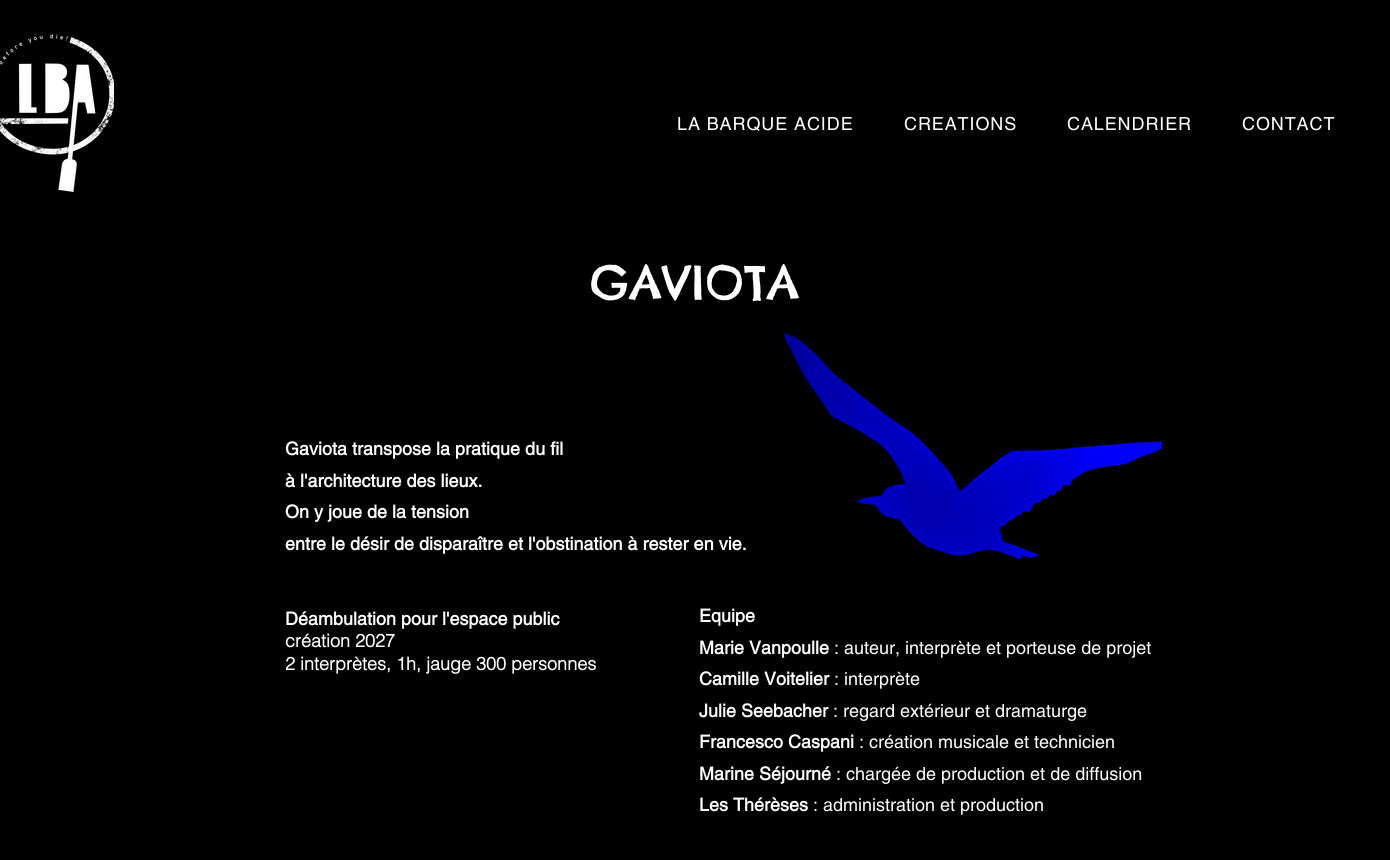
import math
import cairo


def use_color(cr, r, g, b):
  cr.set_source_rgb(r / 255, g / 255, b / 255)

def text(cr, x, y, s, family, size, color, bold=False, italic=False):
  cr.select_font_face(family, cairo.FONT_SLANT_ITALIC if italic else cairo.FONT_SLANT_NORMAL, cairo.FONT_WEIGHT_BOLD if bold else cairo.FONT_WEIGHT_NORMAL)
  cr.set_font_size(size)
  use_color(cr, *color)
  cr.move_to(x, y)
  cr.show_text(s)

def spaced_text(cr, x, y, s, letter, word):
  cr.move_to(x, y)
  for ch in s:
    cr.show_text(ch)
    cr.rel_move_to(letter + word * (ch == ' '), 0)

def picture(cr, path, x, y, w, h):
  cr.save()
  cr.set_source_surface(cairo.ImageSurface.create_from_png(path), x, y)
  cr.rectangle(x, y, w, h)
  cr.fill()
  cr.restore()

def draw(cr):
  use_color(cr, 0, 0, 0)
  cr.paint()
  picture(cr, "img_01.png", 0, 33, 114, 159)
  picture(cr, "img_02.png", 785, 332, 377, 227)
  cr.select_font_face("helvetica")
  cr.set_font_size(18)
  use_color(cr, 255, 255, 255)
  spaced_text(cr, 677, 130, "LA BARQUE ACIDE", 0.9, 0)
  spaced_text(cr, 904, 130, "CREATIONS", 0.9, 0)
  spaced_text(cr, 1067, 130, "CALENDRIER", 0.9, 0)
  spaced_text(cr, 1242, 130, "CONTACT", 0.9, 0)
  cr.select_font_face("Chelsea Market")
  cr.set_font_size(46)
  spaced_text(cr, 590, 299, "GAVIOTA", 0.5, 0)
  text(cr, 285, 455, "Gaviota transpose la pratique du fil", "helvetica", 18, (255, 255, 255), bold=True)
  text(cr, 285, 487, "à l'architecture des lieux.", "helvetica", 18, (255, 255, 255), bold=True)
  text(cr, 285, 518, "On y joue de la tension", "helvetica", 18, (255, 255, 255), bold=True)
  text(cr, 285, 550, "entre le désir de disparaître et l'obstination à rester en vie.", "helvetica", 18, (255, 255, 255), bold=True)
  text(cr, 285, 625, "Déambulation pour l'espace public", "helvetica", 18, (255, 255, 255), bold=True)
  text(cr, 285, 647, "création 2027", "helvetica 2", 18, (255, 255, 255), bold=True)
  text(cr, 285, 670, "2 interprètes, 1h, jauge 300 personnes", "helvetica 2", 18, (255, 255, 255), bold=True)
  text(cr, 699, 622, "Equipe", "helvetica", 18, (255, 255, 255), bold=True)
  text(cr, 699, 654, "Marie Vanpoulle", "helvetica", 18, (255, 255, 255), bold=True)
  text(cr, 834, 654, ": auteur, interprète et porteuse de projet", "helvetica", 18, (255, 255, 255))
  text(cr, 699, 685, "Camille Voitelier", "helvetica", 18, (255, 255, 255), bold=True)
  text(cr, 834, 685, ": interprète", "helvetica", 18, (255, 255, 255))
  text(cr, 699, 717, "Julie Seebacher", "helvetica", 18, (255, 255, 255), bold=True)
  text(cr, 833, 717, ": regard extérieur et dramaturge", "helvetica", 18, (255, 255, 255))
  text(cr, 699, 748, "Francesco Caspani", "helvetica", 18, (255, 255, 255), bold=True)
  text(cr, 859, 748, ": création musicale et technicien", "helvetica", 18, (255, 255, 255))
  text(cr, 699, 780, "Marine Séjourné", "helvetica", 18, (255, 255, 255), bold=True)
  text(cr, 836, 780, ": chargée de production et de diffusion", "helvetica", 18, (255, 255, 255))
  text(cr, 699, 811, "Les Thérèses", "helvetica", 18, (255, 255, 255), bold=True)
  text(cr, 813, 811, ": administration et production", "helvetica", 18, (255, 255, 255))


surface = cairo.ImageSurface(cairo.FORMAT_RGB24, 1390, 860)
cr = cairo.Context(surface)
options = cairo.FontOptions()
options.set_hint_metrics(cairo.HINT_METRICS_OFF)
options.set_hint_style(cairo.HINT_STYLE_NONE)
cr.set_font_options(options)
cr.set_miter_limit(4)
draw(cr)
surface.write_to_png("out.png")
